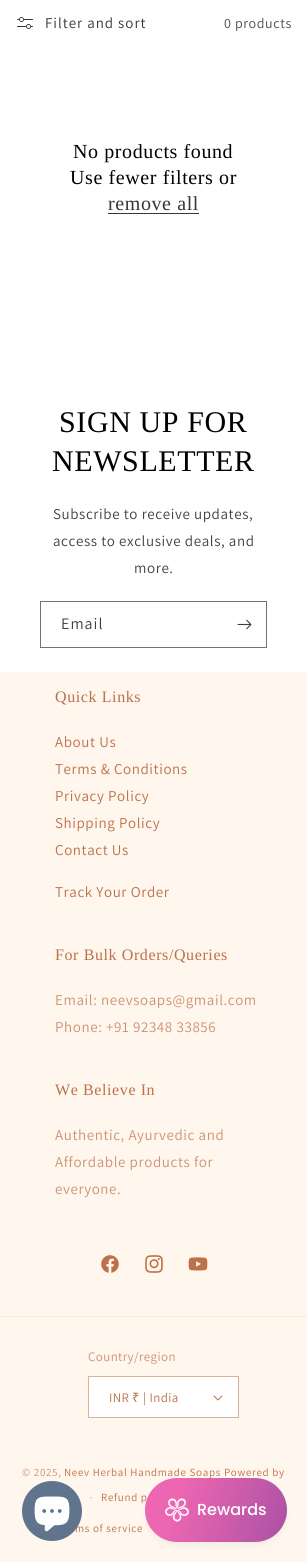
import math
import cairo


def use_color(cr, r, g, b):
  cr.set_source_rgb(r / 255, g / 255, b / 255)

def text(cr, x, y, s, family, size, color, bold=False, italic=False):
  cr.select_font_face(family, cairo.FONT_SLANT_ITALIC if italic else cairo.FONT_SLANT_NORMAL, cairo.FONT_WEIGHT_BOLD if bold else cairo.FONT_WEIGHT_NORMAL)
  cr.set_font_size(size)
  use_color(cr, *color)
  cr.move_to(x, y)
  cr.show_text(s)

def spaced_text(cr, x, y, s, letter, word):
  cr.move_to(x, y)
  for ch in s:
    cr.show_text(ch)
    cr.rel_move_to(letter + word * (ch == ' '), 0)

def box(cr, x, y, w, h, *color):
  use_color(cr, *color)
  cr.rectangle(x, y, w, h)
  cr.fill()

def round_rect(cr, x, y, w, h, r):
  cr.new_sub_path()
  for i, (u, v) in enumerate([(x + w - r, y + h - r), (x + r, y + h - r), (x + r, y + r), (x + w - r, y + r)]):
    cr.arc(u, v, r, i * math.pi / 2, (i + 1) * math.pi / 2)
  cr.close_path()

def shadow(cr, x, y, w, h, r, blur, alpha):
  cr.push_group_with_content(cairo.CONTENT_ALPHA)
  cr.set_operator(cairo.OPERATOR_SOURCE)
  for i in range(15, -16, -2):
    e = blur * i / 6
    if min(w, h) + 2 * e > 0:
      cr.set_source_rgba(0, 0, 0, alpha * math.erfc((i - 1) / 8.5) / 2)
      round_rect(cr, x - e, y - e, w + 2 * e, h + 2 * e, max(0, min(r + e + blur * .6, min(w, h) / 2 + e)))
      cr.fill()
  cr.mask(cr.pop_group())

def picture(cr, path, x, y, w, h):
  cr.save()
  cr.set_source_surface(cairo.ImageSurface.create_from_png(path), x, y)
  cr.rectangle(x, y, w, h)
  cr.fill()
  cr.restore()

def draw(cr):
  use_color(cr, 255, 255, 255)
  cr.paint()
  picture(cr, "img_01.png", 17, 17, 16, 12)
  box(cr, 108, 213, 91, 1, 54, 54, 54)
  cr.rectangle(40.5, 601.5, 226, 46)
  use_color(cr, 115, 115, 115)
  cr.set_line_width(1)
  cr.stroke()
  picture(cr, "img_02.png", 237, 619, 15, 11)
  box(cr, 0, 672, 307, 890, 255, 246, 237)
  picture(cr, "img_03.png", 101, 1255, 18, 18)
  picture(cr, "img_04.png", 145, 1255, 18, 18)
  picture(cr, "img_05.png", 188, 1257, 20, 14)
  box(cr, 0, 1316, 307, 1, 250, 235, 224)
  box(cr, 89, 1377, 149, 40, 255, 255, 255)
  picture(cr, "img_06.png", 213, 1395, 10, 6)
  cr.rectangle(88.5, 1376.5, 150, 41)
  use_color(cr, 218, 177, 154)
  cr.stroke()
  use_color(cr, 68, 68, 68)
  shadow(cr, 147, 1484, 138, 60, 30, 4, 0.08)
  cr.select_font_face("Assistant")
  cr.set_font_size(15)
  use_color(cr, 54, 54, 54)
  spaced_text(cr, 45, 28, "Filter and sort", 1, 0)
  cr.set_font_size(14)
  use_color(cr, 77, 77, 77)
  spaced_text(cr, 224, 28, "0 products", 0.6, 0)
  cr.select_font_face("Liberation Serif")
  cr.set_font_size(20)
  use_color(cr, 0, 0, 0)
  spaced_text(cr, 73, 158, "No products found", 0.6, 0)
  spaced_text(cr, 70, 184, "Use fewer filters or", 0.6, 0)
  use_color(cr, 54, 54, 54)
  spaced_text(cr, 108, 210, "remove all", 0.6, 0)
  cr.set_font_size(30)
  use_color(cr, 0, 0, 0)
  spaced_text(cr, 59, 432, "SIGN UP FOR", 0.6, 0)
  spaced_text(cr, 52, 471, "NEWSLETTER", 0.6, 0)
  cr.select_font_face("Assistant")
  cr.set_font_size(15)
  use_color(cr, 64, 64, 64)
  spaced_text(cr, 53, 519, "Subscribe to receive updates,", 0.6, 0)
  spaced_text(cr, 53, 546, "access to exclusive deals, and", 0.6, 0)
  spaced_text(cr, 134, 573, "more.", 0.6, 0)
  cr.set_font_size(16)
  spaced_text(cr, 61, 629, "Email", 1, 0)
  cr.select_font_face("Liberation Serif")
  use_color(cr, 188, 113, 71)
  spaced_text(cr, 55, 702, "Quick Links", 0.6, 0)
  cr.select_font_face("Assistant")
  cr.set_font_size(15)
  spaced_text(cr, 55, 747, "About Us", 0.6, 0)
  spaced_text(cr, 55, 774, "Terms & Conditions", 0.6, 0)
  spaced_text(cr, 55, 801, "Privacy Policy", 0.6, 0)
  spaced_text(cr, 55, 828, "Shipping Policy", 0.6, 0)
  spaced_text(cr, 55, 855, "Contact Us", 0.6, 0)
  spaced_text(cr, 55, 897, "Track Your Order", 0.6, 0)
  cr.select_font_face("Liberation Serif")
  cr.set_font_size(16)
  spaced_text(cr, 55, 960, "For Bulk Orders/Queries", 0.6, 0)
  cr.select_font_face("Assistant")
  cr.set_font_size(15)
  use_color(cr, 205, 146, 113)
  spaced_text(cr, 55, 1005, "Email: neevsoaps@gmail.com", 0.6, 0)
  spaced_text(cr, 55, 1032, "Phone: +91 92348 33856", 0.6, 0)
  cr.select_font_face("Liberation Serif")
  cr.set_font_size(16)
  use_color(cr, 188, 113, 71)
  spaced_text(cr, 55, 1095, "We Believe In", 0.6, 0)
  cr.select_font_face("Assistant")
  cr.set_font_size(15)
  use_color(cr, 205, 146, 113)
  spaced_text(cr, 55, 1140, "Authentic, Ayurvedic and", 0.6, 0)
  spaced_text(cr, 55, 1167, "Affordable products for", 0.6, 0)
  spaced_text(cr, 55, 1194, "everyone.", 0.6, 0)
  cr.set_font_size(13)
  spaced_text(cr, 88, 1361, "Country/region", 0.4, 0)
  use_color(cr, 188, 113, 71)
  spaced_text(cr, 109, 1402, "INR", 0.4, 0)
  cr.select_font_face("Noto Sans")
  spaced_text(cr, 132, 1402, "₹", 0.4, 0)
  cr.select_font_face("Assistant")
  spaced_text(cr, 143, 1402, "| India", 0.4, 0)
  cr.set_font_size(11)
  use_color(cr, 205, 146, 113)
  spaced_text(cr, 22, 1476, "© 2025,", 0.7, 0)
  use_color(cr, 188, 113, 71)
  spaced_text(cr, 64, 1476, "Neev Herbal Handmade Soaps Powered by", 0.7, 0)
  cr.set_font_size(10)
  use_color(cr, 205, 146, 113)
  spaced_text(cr, 90, 1501, "·", 0.7, 0)
  cr.set_font_size(11)
  use_color(cr, 188, 113, 71)
  spaced_text(cr, 101, 1501, "Refund p", 0.7, 0)
  spaced_text(cr, 75, 1532, "ms of service", 0.7, 0)
  use_color(cr, 96, 117, 141)
  cr.new_path()
  cr.arc(52, 1511, 30, 0, 2 * math.pi)
  cr.fill()
  picture(cr, "img_07.png", 34, 1496, 36, 36)
  gradient = cairo.LinearGradient(143, 1484, 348, 1557)
  gradient.add_color_stop_rgba(0.17, 0.929, 0.4, 0.698, 1)
  gradient.add_color_stop_rgba(1, 0.525, 0.275, 0.612, 1)
  cr.set_source(gradient)
  round_rect(cr, 145, 1478, 142, 64, 32)
  cr.fill()
  picture(cr, "img_08.png", 165, 1498, 24, 24)
  text(cr, 197, 1515, "Rewards", "Poppins Medium", 16, (255, 255, 255))


surface = cairo.ImageSurface(cairo.FORMAT_RGB24, 307, 1562)
cr = cairo.Context(surface)
options = cairo.FontOptions()
options.set_hint_metrics(cairo.HINT_METRICS_OFF)
options.set_hint_style(cairo.HINT_STYLE_NONE)
cr.set_font_options(options)
cr.set_miter_limit(4)
draw(cr)
surface.write_to_png("out.png")
